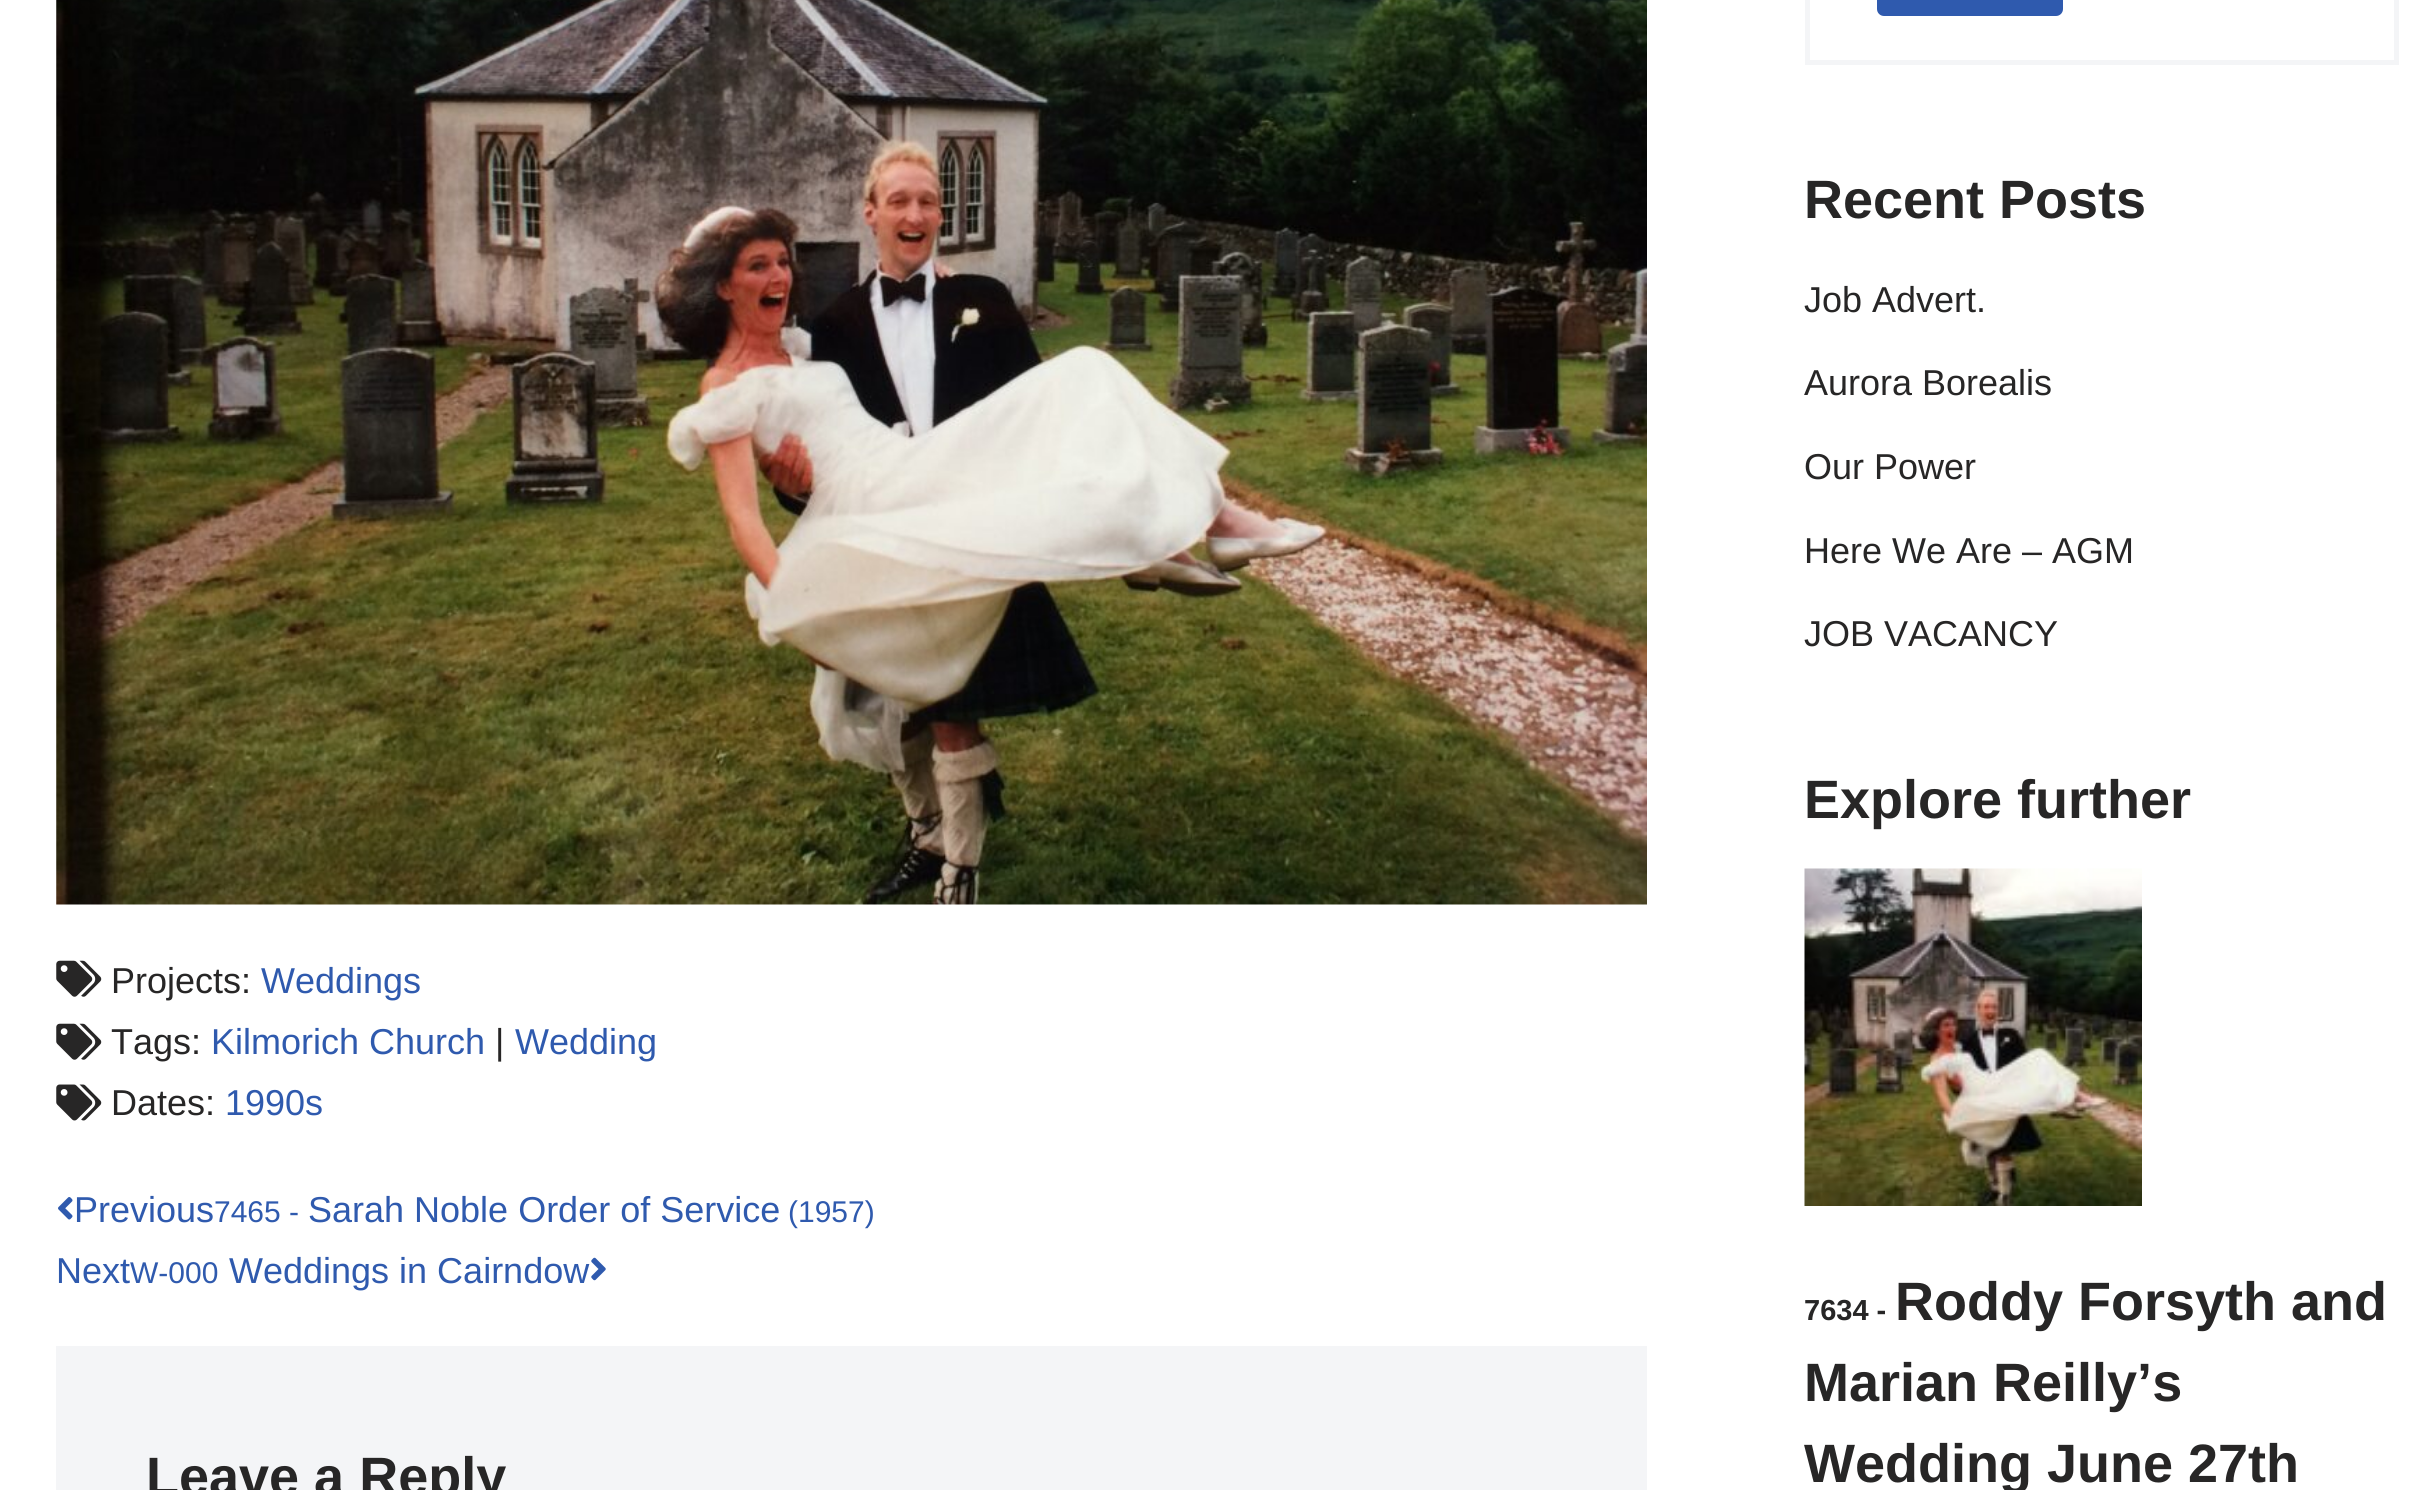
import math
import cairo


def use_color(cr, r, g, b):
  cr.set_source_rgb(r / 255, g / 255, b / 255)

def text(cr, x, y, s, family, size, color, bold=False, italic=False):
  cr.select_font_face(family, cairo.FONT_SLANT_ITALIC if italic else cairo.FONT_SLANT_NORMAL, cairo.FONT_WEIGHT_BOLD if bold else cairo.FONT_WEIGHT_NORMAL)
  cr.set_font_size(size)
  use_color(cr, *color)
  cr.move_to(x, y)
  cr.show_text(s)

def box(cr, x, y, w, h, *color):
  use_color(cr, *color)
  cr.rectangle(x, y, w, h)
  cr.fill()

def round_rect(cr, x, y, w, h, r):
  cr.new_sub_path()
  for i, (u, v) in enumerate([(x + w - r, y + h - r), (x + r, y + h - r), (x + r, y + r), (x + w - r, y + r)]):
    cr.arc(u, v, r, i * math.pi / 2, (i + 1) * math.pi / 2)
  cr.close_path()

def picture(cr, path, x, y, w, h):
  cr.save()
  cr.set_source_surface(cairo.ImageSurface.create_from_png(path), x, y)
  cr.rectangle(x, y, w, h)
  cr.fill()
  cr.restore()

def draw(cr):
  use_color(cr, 255, 255, 255)
  cr.paint()
  picture(cr, "img_01.png", 56, 0, 1591, 905)
  picture(cr, "img_02.png", 56, 960, 46, 37)
  picture(cr, "img_02.png", 56, 1023, 46, 37)
  picture(cr, "img_03.png", 56, 1084, 46, 37)
  picture(cr, "img_04.png", 58, 1197, 15, 23)
  picture(cr, "img_05.png", 591, 1257, 15, 24)
  box(cr, 56, 1346, 1591, 144, 244, 245, 247)
  cr.rectangle(1807.5, -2.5, 589, 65)
  cr.set_line_width(5)
  cr.stroke()
  use_color(cr, 47, 90, 174)
  round_rect(cr, 1877, -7, 186, 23, 7)
  cr.fill()
  picture(cr, "img_06.png", 1804, 868, 338, 338)
  text(cr, 111, 993, "Projects:", "Liberation Sans", 36, (39, 38, 38))
  text(cr, 261, 993, "Weddings", "Liberation Sans", 36, (47, 90, 174))
  text(cr, 111, 1054, "Tags:", "Liberation Sans", 36, (39, 38, 38))
  text(cr, 211, 1054, "Kilmorich Church", "Liberation Sans", 36, (47, 90, 174))
  text(cr, 495, 1054, "|", "Liberation Sans", 36, (39, 38, 38))
  text(cr, 515, 1054, "Wedding", "Liberation Sans", 36, (47, 90, 174))
  text(cr, 111, 1115, "Dates:", "Liberation Sans", 36, (39, 38, 38))
  text(cr, 225, 1115, "1990s", "Liberation Sans", 36, (47, 90, 174))
  text(cr, 74, 1222, "Previous", "Liberation Sans", 36, (47, 90, 174))
  text(cr, 214, 1222, "7465 -", "Liberation Sans", 30, (47, 90, 174))
  text(cr, 308, 1222, "Sarah Noble Order of Service", "Liberation Sans", 36, (47, 90, 174))
  text(cr, 788, 1222, "(1957)", "Liberation Sans", 30, (47, 90, 174))
  text(cr, 56, 1283, "Next", "Liberation Sans", 36, (47, 90, 174))
  text(cr, 130, 1283, "W-000", "Liberation Sans", 30, (47, 90, 174))
  text(cr, 229, 1283, "Weddings in Cairndow", "Liberation Sans", 36, (47, 90, 174))
  text(cr, 146, 1495, "Leave a Reply", "Liberation Sans", 54, (39, 38, 38), bold=True)
  text(cr, 1804, 218, "Recent Posts", "Liberation Sans", 54, (39, 38, 38), bold=True)
  text(cr, 1804, 312, "Job Advert.", "Liberation Sans", 36, (39, 38, 38))
  text(cr, 1804, 395, "Aurora Borealis", "Liberation Sans", 36, (39, 38, 38))
  text(cr, 1804, 479, "Our Power", "Liberation Sans", 36, (39, 38, 38))
  text(cr, 1804, 563, "Here We Are – AGM", "Liberation Sans", 36, (39, 38, 38))
  text(cr, 1804, 646, "JOB VACANCY", "Liberation Sans", 36, (39, 38, 38))
  text(cr, 1804, 818, "Explore further", "Liberation Sans", 54, (39, 38, 38), bold=True)
  text(cr, 1804, 1320, "7634 -", "Liberation Sans", 29, (39, 38, 38), bold=True)
  text(cr, 1895, 1320, "Roddy Forsyth and", "Liberation Sans", 54, (39, 38, 38), bold=True)
  text(cr, 1804, 1401, "Marian Reilly’s", "Liberation Sans", 54, (39, 38, 38), bold=True)
  text(cr, 1804, 1482, "Wedding June 27th", "Liberation Sans", 54, (39, 38, 38), bold=True)


surface = cairo.ImageSurface(cairo.FORMAT_RGB24, 2431, 1490)
cr = cairo.Context(surface)
options = cairo.FontOptions()
options.set_hint_metrics(cairo.HINT_METRICS_OFF)
options.set_hint_style(cairo.HINT_STYLE_NONE)
cr.set_font_options(options)
cr.set_miter_limit(4)
draw(cr)
surface.write_to_png("out.png")
